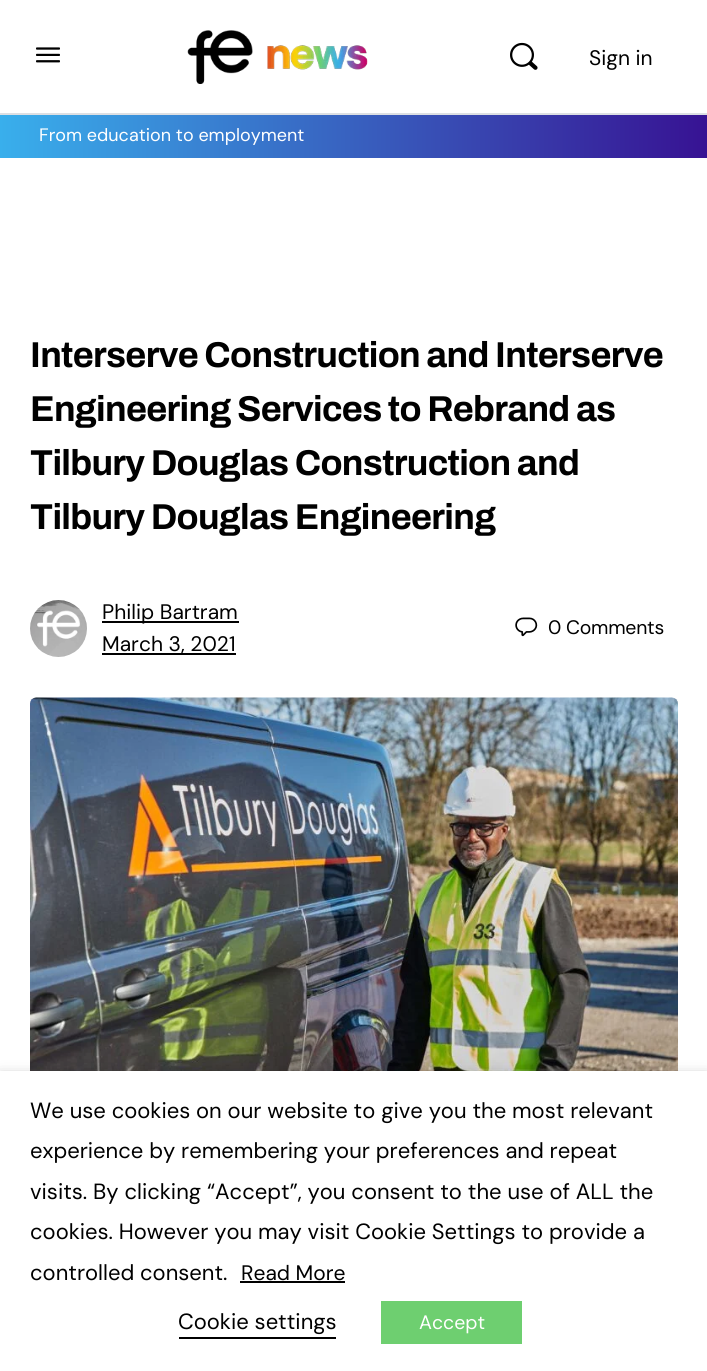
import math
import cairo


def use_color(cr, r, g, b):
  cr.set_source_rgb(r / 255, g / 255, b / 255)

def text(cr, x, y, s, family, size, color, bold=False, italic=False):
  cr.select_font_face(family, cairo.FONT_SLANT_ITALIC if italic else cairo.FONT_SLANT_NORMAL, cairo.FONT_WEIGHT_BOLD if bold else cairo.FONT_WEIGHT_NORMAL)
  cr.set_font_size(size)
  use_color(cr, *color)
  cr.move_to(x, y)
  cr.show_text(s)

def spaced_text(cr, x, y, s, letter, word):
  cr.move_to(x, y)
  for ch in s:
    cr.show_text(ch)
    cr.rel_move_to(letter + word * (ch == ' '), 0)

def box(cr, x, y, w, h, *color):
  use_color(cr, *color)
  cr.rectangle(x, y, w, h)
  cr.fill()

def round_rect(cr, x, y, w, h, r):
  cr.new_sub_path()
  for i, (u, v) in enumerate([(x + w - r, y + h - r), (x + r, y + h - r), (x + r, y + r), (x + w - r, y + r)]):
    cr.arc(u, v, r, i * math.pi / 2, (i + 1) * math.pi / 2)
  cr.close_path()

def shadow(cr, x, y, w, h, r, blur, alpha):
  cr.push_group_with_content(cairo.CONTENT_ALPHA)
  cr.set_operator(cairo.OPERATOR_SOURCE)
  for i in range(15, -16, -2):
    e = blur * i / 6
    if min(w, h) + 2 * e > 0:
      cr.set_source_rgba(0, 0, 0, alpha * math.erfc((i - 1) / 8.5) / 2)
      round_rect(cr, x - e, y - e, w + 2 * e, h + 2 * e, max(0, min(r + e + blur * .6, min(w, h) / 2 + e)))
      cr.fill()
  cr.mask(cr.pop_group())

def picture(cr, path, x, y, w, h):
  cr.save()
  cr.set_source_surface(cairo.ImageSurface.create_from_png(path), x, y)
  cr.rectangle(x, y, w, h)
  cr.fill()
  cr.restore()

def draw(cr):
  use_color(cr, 255, 255, 255)
  cr.paint()
  box(cr, 0, 113, 707, 2, 220, 223, 227)
  picture(cr, "img_01.png", 36, 47, 24, 16)
  picture(cr, "img_02.png", 187, 30, 181, 54)
  picture(cr, "img_03.png", 510, 42, 28, 28)
  gradient = cairo.LinearGradient(0, 135, 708, 135)
  gradient.add_color_stop_rgba(0, 0.224, 0.686, 0.925, 1)
  gradient.add_color_stop_rgba(1, 0.216, 0.071, 0.576, 1)
  cr.set_source(gradient)
  cr.rectangle(0, 115, 707, 43)
  cr.fill()
  picture(cr, "img_04.png", 30, 600, 57, 57)
  box(cr, 102, 621, 137, 2, 0, 0, 0)
  box(cr, 102, 653, 134, 2, 0, 0, 0)
  picture(cr, "img_05.png", 515, 617, 23, 20)
  picture(cr, "img_06.png", 30, 697, 648, 374)
  use_color(cr, 0, 0, 0)
  shadow(cr, 0, 1079, 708, 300, 0, 7.5, 0.5)
  box(cr, 0, 1071, 707, 300, 255, 255, 255)
  box(cr, 240, 1281, 105, 2, 0, 0, 0)
  box(cr, 179, 1337, 157, 2, 0, 0, 0)
  box(cr, 381, 1301, 141, 43, 110, 207, 112)
  text(cr, 589, 65, "Sign in", "DM Sans", 21, (0, 0, 0))
  text(cr, 39, 141, "From education to employment", "DM Sans", 18, (255, 255, 255))
  cr.select_font_face("Archivo SemiBold")
  cr.set_font_size(36)
  use_color(cr, 0, 0, 0)
  spaced_text(cr, 30, 367, "Interserve Construction and Interserve", -0.7, 0)
  spaced_text(cr, 30, 421, "Engineering Services to Rebrand as", -0.7, 0)
  spaced_text(cr, 30, 475, "Tilbury Douglas Construction and", -0.7, 0)
  spaced_text(cr, 30, 529, "Tilbury Douglas Engineering", -0.7, 0)
  text(cr, 102, 619, "Philip Bartram", "DM Sans", 21, (0, 0, 0))
  text(cr, 102, 651, "March 3, 2021", "DM Sans", 21, (0, 0, 0))
  cr.set_font_size(19.5)
  spaced_text(cr, 548, 634, "0 Comments", -0.25, 0)
  text(cr, 30, 1118, "We use cookies on our website to give you the most relevant", "DM Sans", 22, (0, 0, 0))
  text(cr, 30, 1158, "experience by remembering your preferences and repeat", "DM Sans", 22, (0, 0, 0))
  text(cr, 30, 1199, "visits. By clicking “Accept”, you consent to the use of ALL the", "DM Sans", 22, (0, 0, 0))
  text(cr, 30, 1239, "cookies. However you may visit Cookie Settings to provide a", "DM Sans", 22, (0, 0, 0))
  text(cr, 30, 1280, "controlled consent.", "DM Sans", 22, (0, 0, 0))
  text(cr, 241, 1280, "Read More", "DM Sans", 21, (0, 0, 0))
  text(cr, 178, 1329, "Cookie settings", "DM Sans", 22, (0, 0, 0))
  text(cr, 419, 1329, "Accept", "DM Sans", 19.5, (255, 255, 255))


surface = cairo.ImageSurface(cairo.FORMAT_RGB24, 707, 1371)
cr = cairo.Context(surface)
options = cairo.FontOptions()
options.set_hint_metrics(cairo.HINT_METRICS_OFF)
options.set_hint_style(cairo.HINT_STYLE_NONE)
cr.set_font_options(options)
cr.set_miter_limit(4)
draw(cr)
surface.write_to_png("out.png")
